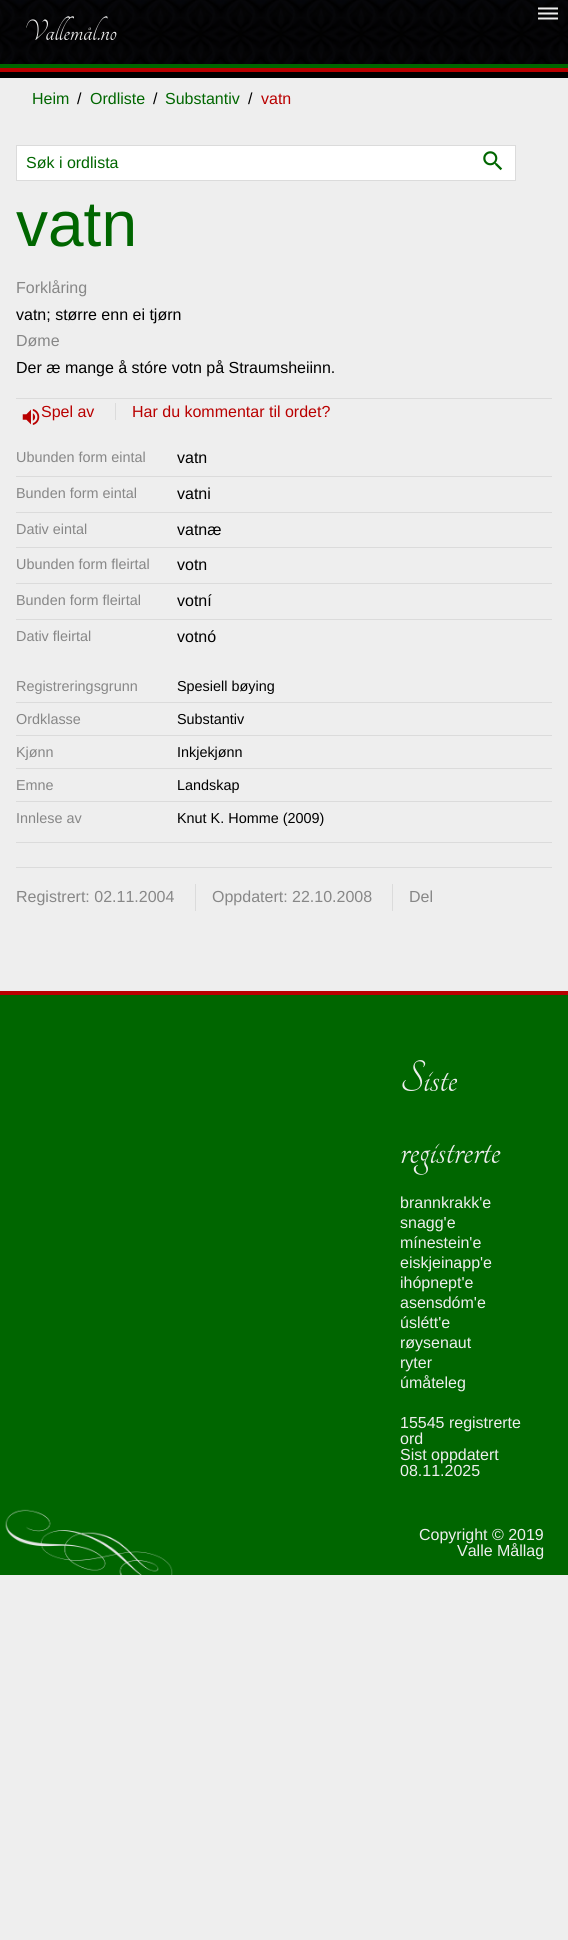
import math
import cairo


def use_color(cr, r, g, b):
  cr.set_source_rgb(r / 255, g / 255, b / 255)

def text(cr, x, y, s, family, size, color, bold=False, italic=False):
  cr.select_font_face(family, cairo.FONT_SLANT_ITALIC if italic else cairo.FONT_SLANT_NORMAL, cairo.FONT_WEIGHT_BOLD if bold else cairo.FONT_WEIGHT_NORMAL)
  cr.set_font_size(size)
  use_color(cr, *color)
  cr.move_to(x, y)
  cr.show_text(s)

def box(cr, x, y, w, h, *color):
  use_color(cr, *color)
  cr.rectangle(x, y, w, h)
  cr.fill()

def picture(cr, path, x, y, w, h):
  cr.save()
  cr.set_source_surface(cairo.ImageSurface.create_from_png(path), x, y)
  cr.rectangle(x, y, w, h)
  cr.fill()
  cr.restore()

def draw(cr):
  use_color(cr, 238, 238, 238)
  cr.paint()
  picture(cr, "img_01.png", 0, 0, 568, 64)
  box(cr, 0, 68, 568, 4, 185, 0, 0)
  picture(cr, "img_02.png", 538, 7, 20, 13)
  box(cr, 0, 64, 568, 4, 0, 102, 0)
  box(cr, 0, 72, 568, 6, 0, 0, 0)
  use_color(cr, 255, 255, 255)
  cr.rectangle(16.5, 145.5, 499, 35)
  cr.fill_preserve()
  use_color(cr, 219, 219, 219)
  cr.set_line_width(1)
  cr.stroke()
  picture(cr, "img_03.png", 483, 151, 20, 20)
  box(cr, 16, 398, 536, 1, 219, 219, 219)
  picture(cr, "img_04.png", 22, 409, 18, 16)
  box(cr, 115, 403, 1, 17, 219, 219, 219)
  box(cr, 16, 476, 536, 1, 219, 219, 219)
  box(cr, 16, 512, 536, 1, 219, 219, 219)
  box(cr, 16, 547, 536, 1, 219, 219, 219)
  box(cr, 16, 583, 536, 1, 219, 219, 219)
  box(cr, 16, 619, 536, 1, 219, 219, 219)
  box(cr, 16, 702, 536, 1, 219, 219, 219)
  box(cr, 16, 735, 536, 1, 219, 219, 219)
  box(cr, 16, 768, 536, 1, 219, 219, 219)
  box(cr, 16, 801, 536, 1, 219, 219, 219)
  box(cr, 16, 842, 536, 1, 219, 219, 219)
  box(cr, 16, 867, 536, 1, 219, 219, 219)
  box(cr, 195, 884, 1, 27, 219, 219, 219)
  box(cr, 392, 884, 1, 27, 219, 219, 219)
  box(cr, 0, 991, 568, 4, 185, 0, 0)
  box(cr, 0, 995, 568, 580, 0, 102, 0)
  picture(cr, "img_05.png", 5, 1509, 168, 66)
  text(cr, 24, 40, "Vallemål.no", "Tangerine", 32, (238, 238, 238))
  text(cr, 32, 104, "Heim", "Liberation Sans", 16, (0, 102, 0))
  text(cr, 77, 104, "/", "Liberation Sans", 16, (0, 0, 0))
  text(cr, 90, 104, "Ordliste", "Liberation Sans", 16, (0, 102, 0))
  text(cr, 153, 104, "/", "Liberation Sans", 16, (0, 0, 0))
  text(cr, 165, 104, "Substantiv", "Liberation Sans", 16, (0, 102, 0))
  text(cr, 248, 104, "/", "Liberation Sans", 16, (0, 0, 0))
  text(cr, 261, 104, "vatn", "Liberation Sans", 16, (185, 0, 0))
  text(cr, 26, 168, "Søk i ordlista", "Liberation Sans", 16, (0, 102, 0))
  text(cr, 16, 246, "vatn", "Liberation Sans", 64, (0, 102, 0))
  text(cr, 16, 293, "Forklåring", "Liberation Sans", 16, (135, 135, 135))
  text(cr, 16, 320, "vatn; større enn ei tjørn", "Liberation Sans", 16, (0, 0, 0))
  text(cr, 16, 346, "Døme", "Liberation Sans", 16, (135, 135, 135))
  text(cr, 16, 373, "Der æ mange å stóre votn på Straumsheiinn.", "Liberation Sans", 16, (0, 0, 0))
  text(cr, 41, 417, "Spel av", "Liberation Sans", 16, (185, 0, 0))
  text(cr, 132, 417, "Har du kommentar til ordet?", "Liberation Sans", 16, (185, 0, 0))
  text(cr, 16, 462, "Ubunden form eintal", "Liberation Sans", 14.4, (135, 135, 135))
  text(cr, 177, 463, "vatn", "Liberation Sans", 16, (0, 0, 0))
  text(cr, 16, 498, "Bunden form eintal", "Liberation Sans", 14.4, (135, 135, 135))
  text(cr, 177, 499, "vatni", "Liberation Sans", 16, (0, 0, 0))
  text(cr, 16, 534, "Dativ eintal", "Liberation Sans", 14.4, (135, 135, 135))
  text(cr, 177, 535, "vatnæ", "Liberation Sans", 16, (0, 0, 0))
  text(cr, 16, 569, "Ubunden form fleirtal", "Liberation Sans", 14.4, (135, 135, 135))
  text(cr, 177, 570, "votn", "Liberation Sans", 16, (0, 0, 0))
  text(cr, 16, 605, "Bunden form fleirtal", "Liberation Sans", 14.4, (135, 135, 135))
  text(cr, 177, 606, "votní", "Liberation Sans", 16, (0, 0, 0))
  text(cr, 16, 641, "Dativ fleirtal", "Liberation Sans", 14.4, (135, 135, 135))
  text(cr, 177, 642, "votnó", "Liberation Sans", 16, (0, 0, 0))
  text(cr, 16, 691, "Registreringsgrunn", "Liberation Sans", 14.4, (135, 135, 135))
  text(cr, 177, 691, "Spesiell bøying", "Liberation Sans", 14.4, (0, 0, 0))
  text(cr, 16, 724, "Ordklasse", "Liberation Sans", 14.4, (135, 135, 135))
  text(cr, 177, 724, "Substantiv", "Liberation Sans", 14.4, (0, 0, 0))
  text(cr, 16, 757, "Kjønn", "Liberation Sans", 14.4, (135, 135, 135))
  text(cr, 177, 757, "Inkjekjønn", "Liberation Sans", 14.4, (0, 0, 0))
  text(cr, 16, 790, "Emne", "Liberation Sans", 14.4, (135, 135, 135))
  text(cr, 177, 790, "Landskap", "Liberation Sans", 14.4, (0, 0, 0))
  text(cr, 16, 823, "Innlese av", "Liberation Sans", 14.4, (135, 135, 135))
  text(cr, 177, 823, "Knut K. Homme (2009)", "Liberation Sans", 14.4, (0, 0, 0))
  text(cr, 16, 902, "Registrert: 02.11.2004", "Liberation Sans", 16, (135, 135, 135))
  text(cr, 212, 902, "Oppdatert: 22.10.2008", "Liberation Sans", 16, (135, 135, 135))
  text(cr, 409, 902, "Del", "Liberation Sans", 16, (135, 135, 135))
  text(cr, 400, 1091, "Siste", "Tangerine", 48, (238, 238, 238))
  text(cr, 400, 1163, "registrerte", "Tangerine", 48, (238, 238, 238))
  text(cr, 400, 1208, "brannkrakk'e", "Liberation Sans", 16, (238, 238, 238))
  text(cr, 400, 1228, "snagg'e", "Liberation Sans", 16, (238, 238, 238))
  text(cr, 400, 1248, "mínestein'e", "Liberation Sans", 16, (238, 238, 238))
  text(cr, 400, 1268, "eiskjeinapp'e", "Liberation Sans", 16, (238, 238, 238))
  text(cr, 400, 1288, "ihópnept'e", "Liberation Sans", 16, (238, 238, 238))
  text(cr, 400, 1308, "asensdóm'e", "Liberation Sans", 16, (238, 238, 238))
  text(cr, 400, 1328, "úslétt'e", "Liberation Sans", 16, (238, 238, 238))
  text(cr, 400, 1348, "røysenaut", "Liberation Sans", 16, (238, 238, 238))
  text(cr, 400, 1368, "ryter", "Liberation Sans", 16, (238, 238, 238))
  text(cr, 400, 1388, "úmåteleg", "Liberation Sans", 16, (238, 238, 238))
  text(cr, 400, 1428, "15545 registrerte", "Liberation Sans", 16, (238, 238, 238))
  text(cr, 400, 1444, "ord", "Liberation Sans", 16, (238, 238, 238))
  text(cr, 400, 1460, "Sist oppdatert", "Liberation Sans", 16, (238, 238, 238))
  text(cr, 400, 1476, "08.11.2025", "Liberation Sans", 16, (238, 238, 238))
  text(cr, 419, 1540, "Copyright © 2019", "Liberation Sans", 16, (238, 238, 238))
  text(cr, 457, 1556, "Valle Mållag", "Liberation Sans", 16, (238, 238, 238))


surface = cairo.ImageSurface(cairo.FORMAT_RGB24, 568, 1940)
cr = cairo.Context(surface)
options = cairo.FontOptions()
options.set_hint_metrics(cairo.HINT_METRICS_OFF)
options.set_hint_style(cairo.HINT_STYLE_NONE)
cr.set_font_options(options)
cr.set_miter_limit(4)
draw(cr)
surface.write_to_png("out.png")
